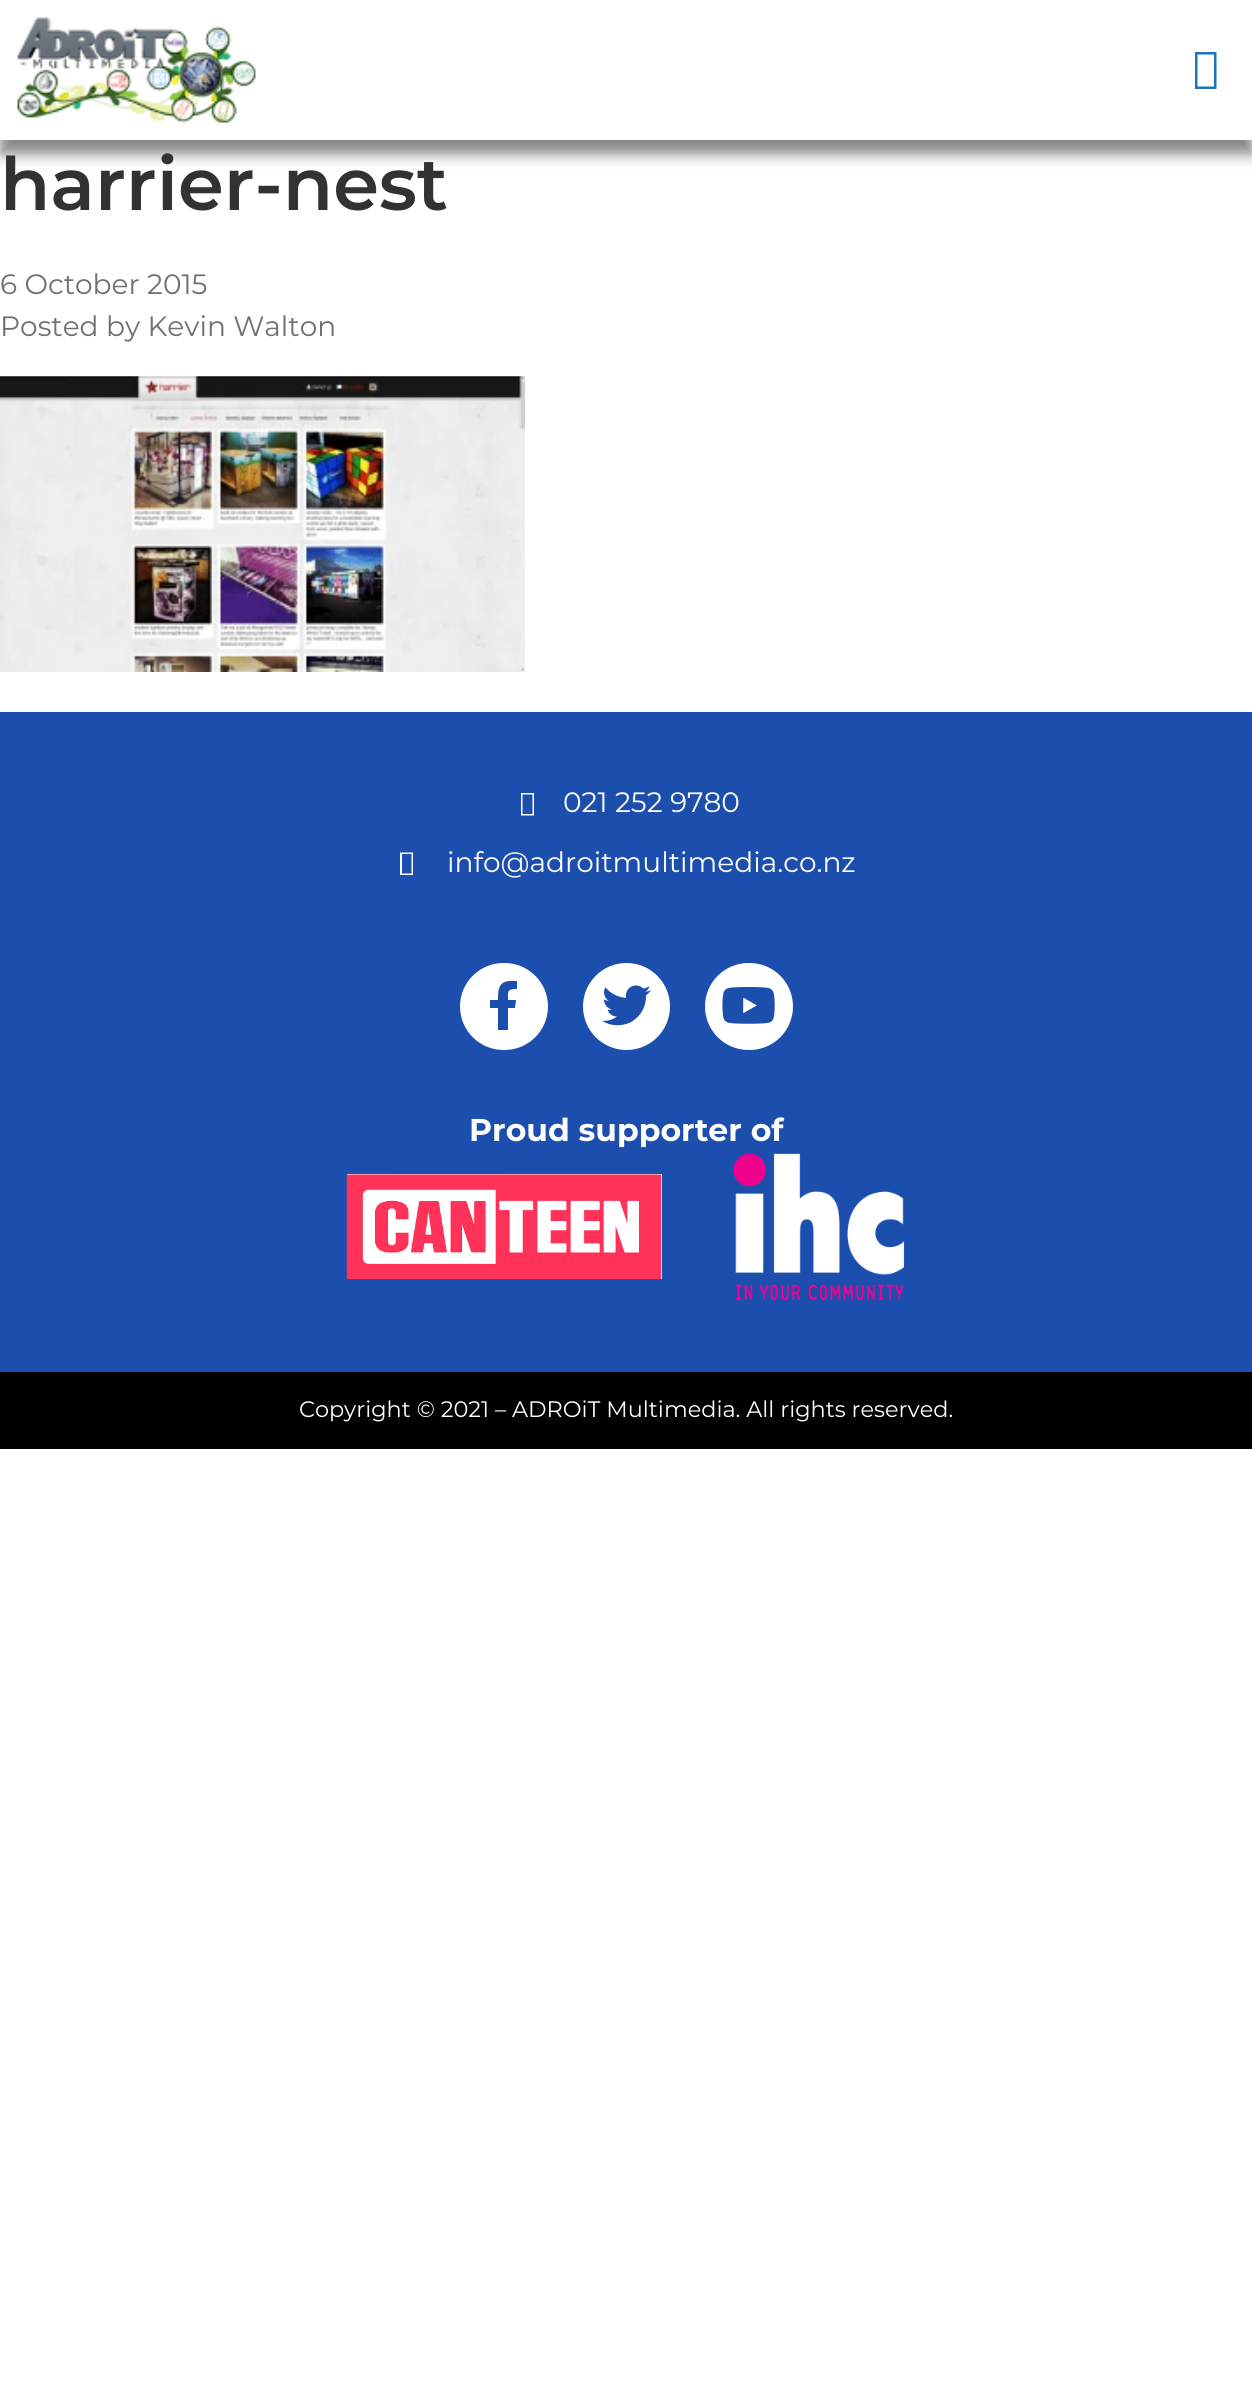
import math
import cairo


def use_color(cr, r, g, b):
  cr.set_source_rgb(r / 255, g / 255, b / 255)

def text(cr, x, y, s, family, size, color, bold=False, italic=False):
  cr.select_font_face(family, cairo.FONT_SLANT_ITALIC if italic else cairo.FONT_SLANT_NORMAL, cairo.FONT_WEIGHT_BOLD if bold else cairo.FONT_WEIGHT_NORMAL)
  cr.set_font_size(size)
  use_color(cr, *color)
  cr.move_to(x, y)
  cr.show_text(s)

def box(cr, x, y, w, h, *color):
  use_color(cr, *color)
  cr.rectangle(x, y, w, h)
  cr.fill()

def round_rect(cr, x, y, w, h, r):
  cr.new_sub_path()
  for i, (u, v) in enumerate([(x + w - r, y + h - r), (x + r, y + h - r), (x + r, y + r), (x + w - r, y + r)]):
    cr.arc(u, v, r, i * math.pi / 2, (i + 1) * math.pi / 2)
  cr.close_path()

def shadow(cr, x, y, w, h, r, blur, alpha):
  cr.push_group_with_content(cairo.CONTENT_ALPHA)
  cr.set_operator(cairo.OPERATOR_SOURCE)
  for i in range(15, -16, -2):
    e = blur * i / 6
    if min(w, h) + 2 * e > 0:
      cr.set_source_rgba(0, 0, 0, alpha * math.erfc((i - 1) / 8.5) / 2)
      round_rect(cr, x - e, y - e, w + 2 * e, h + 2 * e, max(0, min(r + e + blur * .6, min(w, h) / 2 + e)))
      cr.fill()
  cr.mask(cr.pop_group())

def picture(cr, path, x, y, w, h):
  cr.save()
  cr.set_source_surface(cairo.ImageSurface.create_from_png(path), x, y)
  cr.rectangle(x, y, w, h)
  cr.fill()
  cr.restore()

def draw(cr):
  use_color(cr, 255, 255, 255)
  cr.paint()
  use_color(cr, 134, 134, 134)
  shadow(cr, 0, 14, 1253, 140, 0, 7, 1)
  box(cr, 0, 0, 1252, 140, 255, 255, 255)
  picture(cr, "img_01.png", 17, 17, 239, 106)
  use_color(cr, 30, 115, 190)
  cr.new_path()
  cr.move_to(1195, 89)
  cr.line_to(1195, 52)
  cr.line_to(1216.5, 52)
  cr.line_to(1216.5, 89)
  cr.close_path()
  cr.move_to(1197.5, 86.5)
  cr.line_to(1214, 86.5)
  cr.line_to(1214, 54.5)
  cr.line_to(1197.5, 54.5)
  cr.close_path()
  cr.fill()
  picture(cr, "img_02.png", 0, 376, 525, 296)
  box(cr, 0, 712, 1252, 660, 27, 78, 173)
  use_color(cr, 255, 255, 255)
  cr.new_path()
  cr.move_to(521, 815.5)
  cr.line_to(521, 793)
  cr.line_to(534, 793)
  cr.line_to(534, 815.5)
  cr.close_path()
  cr.move_to(522.5, 814)
  cr.line_to(532.5, 814)
  cr.line_to(532.5, 794.5)
  cr.line_to(522.5, 794.5)
  cr.close_path()
  cr.fill()
  cr.new_path()
  cr.move_to(400, 875)
  cr.line_to(400, 852.5)
  cr.line_to(413, 852.5)
  cr.line_to(413, 875)
  cr.close_path()
  cr.move_to(402, 873.5)
  cr.line_to(411.5, 873.5)
  cr.line_to(411.5, 854)
  cr.line_to(402, 854)
  cr.close_path()
  cr.fill()
  round_rect(cr, 460, 963, 88, 87, 43.5)
  cr.fill()
  use_color(cr, 27, 78, 173)
  cr.new_path()
  cr.move_to(515, 1008)
  cr.line_to(516, 1000)
  cr.line_to(508, 1000)
  cr.curve_to(508, 991, 507, 989, 517, 989)
  cr.line_to(517, 981)
  cr.line_to(509, 981)
  cr.curve_to(498, 982, 498, 991, 498, 1000)
  cr.line_to(490, 1000)
  cr.line_to(490, 1008)
  cr.line_to(498, 1008)
  cr.line_to(498, 1030)
  cr.line_to(508, 1030)
  cr.line_to(508, 1008)
  cr.close_path()
  cr.fill()
  use_color(cr, 255, 255, 255)
  cr.arc(626.5, 1006.5, 43.5, 0, 2 * math.pi)
  cr.fill()
  picture(cr, "img_03.png", 602, 985, 49, 41)
  round_rect(cr, 705, 963, 88, 87, 43.5)
  cr.fill()
  picture(cr, "img_04.png", 722, 987, 53, 37)
  box(cr, 347, 1174, 315, 105, 255, 255, 255)
  picture(cr, "img_05.png", 346, 1174, 316, 106)
  picture(cr, "img_06.png", 733, 1153, 172, 148)
  box(cr, 0, 1372, 1252, 77, 0, 0, 0)
  text(cr, 0, 210, "harrier-nest", "Montserrat SemiBold", 73.5, (50, 50, 50))
  text(cr, 0, 294, "6 October 2015", "Montserrat", 28, (112, 112, 112))
  text(cr, 0, 336, "Posted by Kevin Walton", "Montserrat", 28, (112, 112, 112))
  text(cr, 563, 812, "021 252 9780", "Montserrat", 28, (255, 255, 255))
  text(cr, 447, 872, "info@adroitmultimedia.co.nz", "Montserrat", 28, (255, 255, 255))
  text(cr, 469, 1141, "Proud supporter of", "Montserrat", 31.5, (255, 255, 255), bold=True)
  text(cr, 299, 1417, "Copyright © 2021 – ADROiT Multimedia. All rights reserved.", "Montserrat", 22.4, (255, 255, 255))


surface = cairo.ImageSurface(cairo.FORMAT_RGB24, 1252, 2390)
cr = cairo.Context(surface)
options = cairo.FontOptions()
options.set_hint_metrics(cairo.HINT_METRICS_OFF)
options.set_hint_style(cairo.HINT_STYLE_NONE)
cr.set_font_options(options)
cr.set_miter_limit(4)
draw(cr)
surface.write_to_png("out.png")
